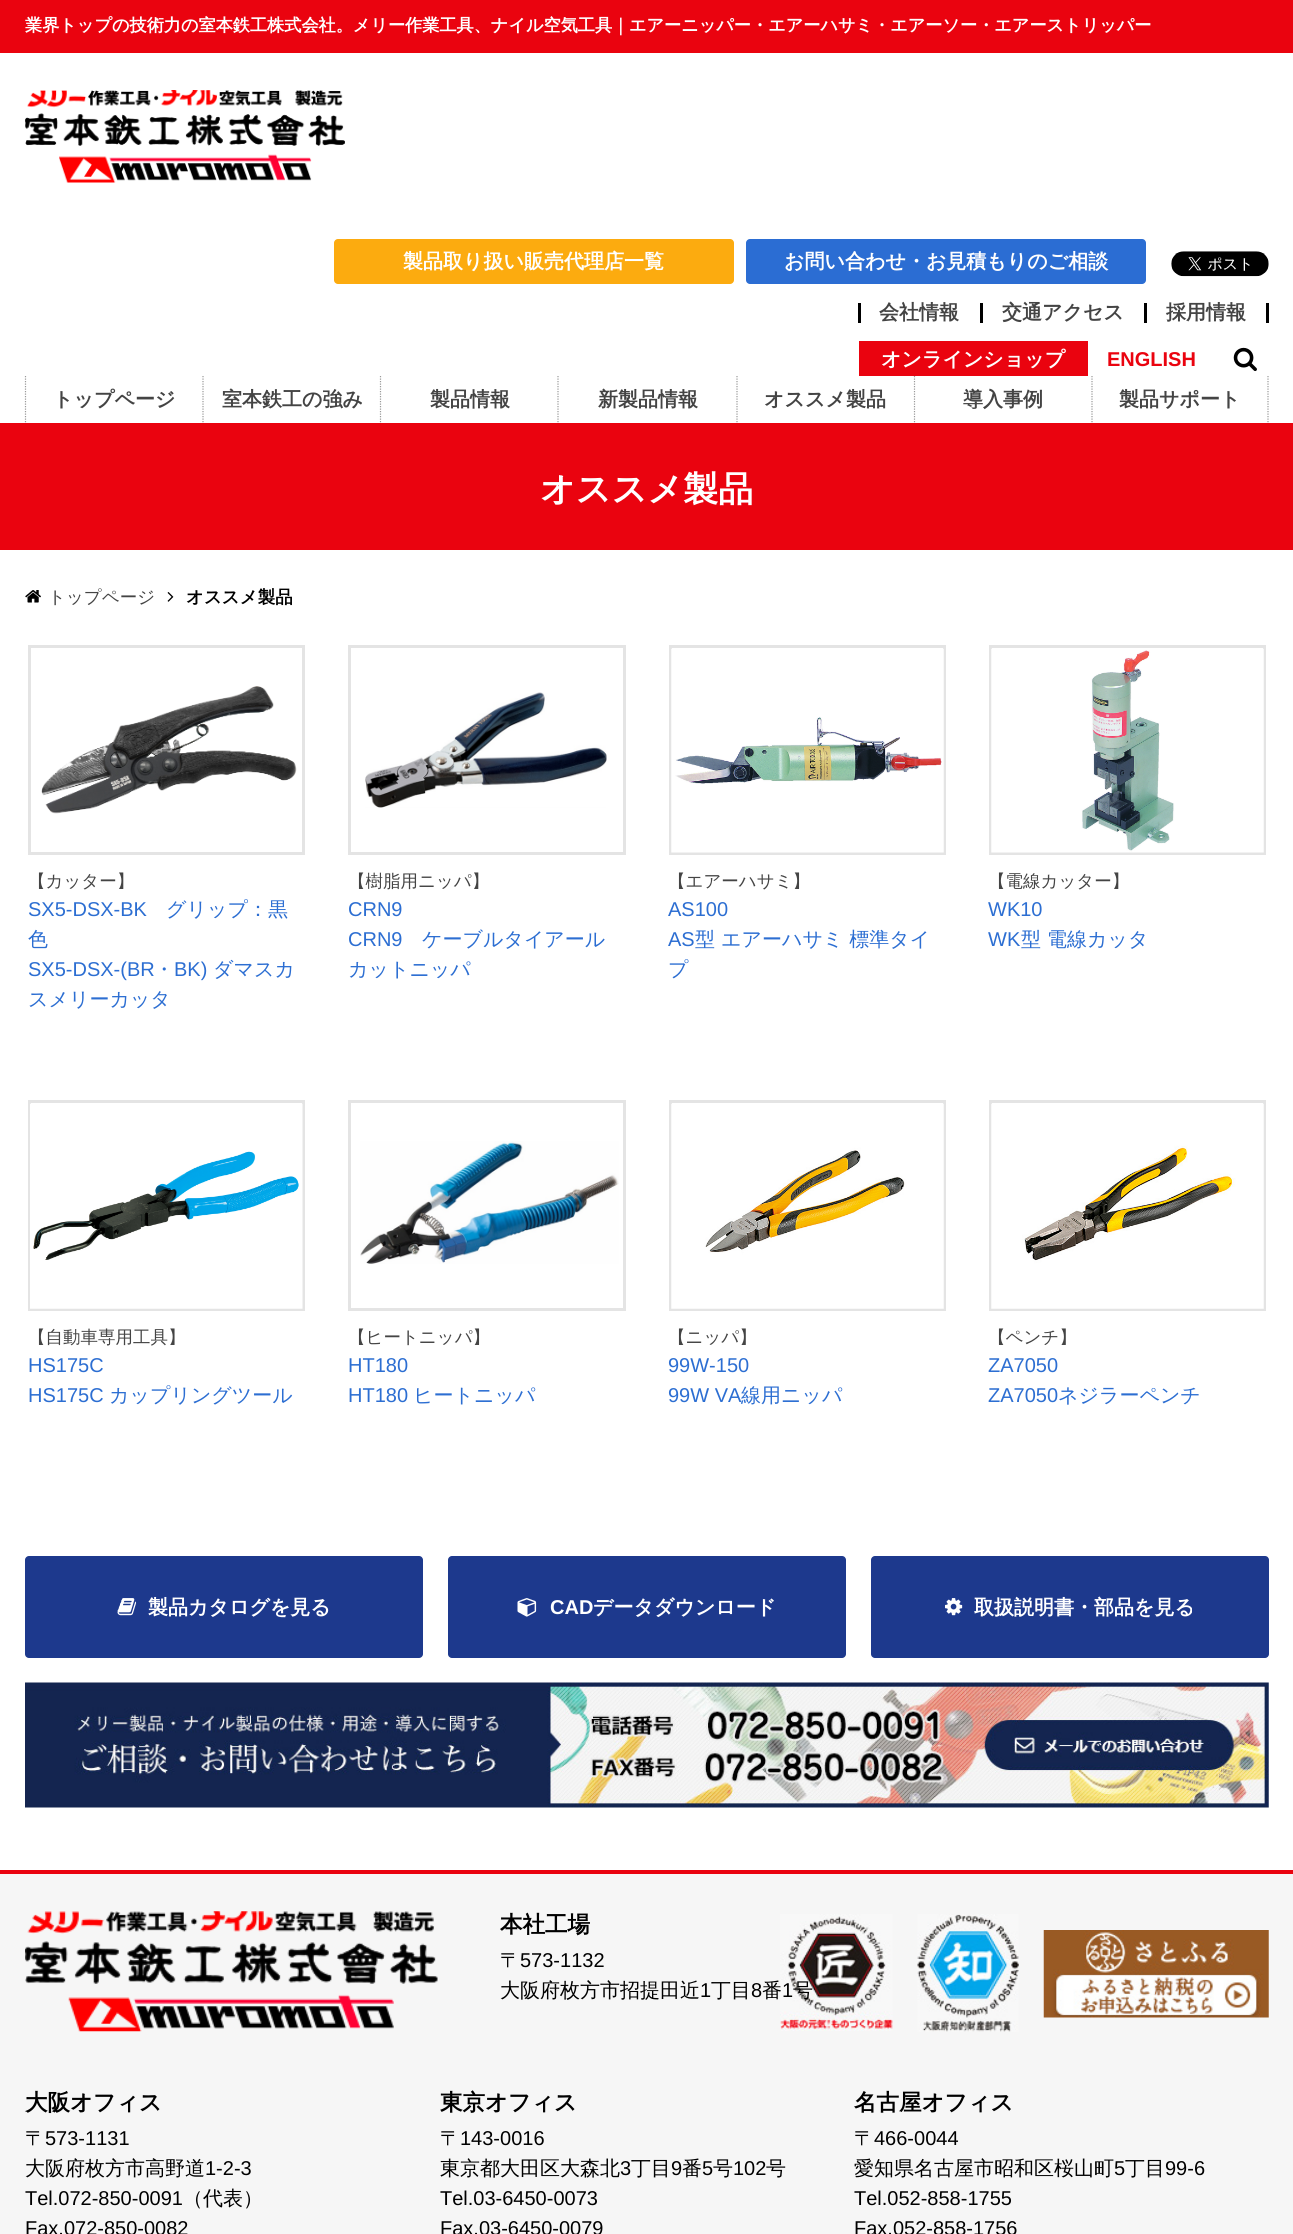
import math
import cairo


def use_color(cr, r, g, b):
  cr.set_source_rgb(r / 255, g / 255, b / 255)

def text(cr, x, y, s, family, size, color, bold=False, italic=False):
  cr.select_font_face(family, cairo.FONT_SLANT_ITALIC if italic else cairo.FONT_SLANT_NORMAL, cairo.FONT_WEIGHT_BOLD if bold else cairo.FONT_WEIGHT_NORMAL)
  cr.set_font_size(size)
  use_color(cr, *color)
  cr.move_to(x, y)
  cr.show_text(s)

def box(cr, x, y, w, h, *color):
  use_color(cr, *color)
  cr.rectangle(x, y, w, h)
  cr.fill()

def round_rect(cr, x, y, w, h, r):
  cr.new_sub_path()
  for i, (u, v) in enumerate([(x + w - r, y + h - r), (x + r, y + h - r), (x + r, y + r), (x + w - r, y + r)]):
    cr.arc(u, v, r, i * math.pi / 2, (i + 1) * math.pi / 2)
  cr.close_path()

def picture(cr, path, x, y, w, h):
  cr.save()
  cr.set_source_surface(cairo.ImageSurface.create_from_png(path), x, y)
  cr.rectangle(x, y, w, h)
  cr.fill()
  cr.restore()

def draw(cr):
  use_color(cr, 255, 255, 255)
  cr.paint()
  box(cr, 0, 0, 1293, 53, 234, 3, 15)
  picture(cr, "img_01.png", 25, 90, 320, 93)
  use_color(cr, 252, 171, 15)
  round_rect(cr, 334, 239, 400, 45, 4)
  cr.fill()
  use_color(cr, 43, 109, 211)
  round_rect(cr, 746, 239, 400, 45, 4)
  cr.fill()
  picture(cr, "img_02.png", 1171, 251, 98, 26)
  box(cr, 980, 303, 3, 20, 0, 0, 0)
  box(cr, 858, 303, 3, 20, 0, 0, 0)
  box(cr, 1144, 303, 3, 20, 0, 0, 0)
  box(cr, 1266, 303, 3, 20, 0, 0, 0)
  box(cr, 859, 341, 229, 35, 234, 3, 15)
  picture(cr, "img_03.png", 1233, 347, 24, 25)
  cr.new_path()
  cr.move_to(25.5, 376)
  cr.line_to(25.5, 422.5)
  use_color(cr, 153, 153, 153)
  cr.set_line_width(1.2)
  cr.set_dash([1.25, 1.25])
  cr.stroke()
  cr.new_path()
  cr.move_to(203, 376)
  cr.line_to(203, 422.5)
  cr.stroke()
  cr.new_path()
  cr.move_to(380.5, 376)
  cr.line_to(380.5, 422.5)
  cr.stroke()
  cr.new_path()
  cr.move_to(558, 376)
  cr.line_to(558, 422.5)
  cr.stroke()
  cr.new_path()
  cr.move_to(737, 376)
  cr.line_to(737, 422.5)
  cr.stroke()
  cr.new_path()
  cr.move_to(914.5, 376)
  cr.line_to(914.5, 422.5)
  cr.stroke()
  cr.new_path()
  cr.move_to(1268, 376)
  cr.line_to(1268, 422.5)
  cr.stroke()
  cr.new_path()
  cr.move_to(1092, 376)
  cr.line_to(1092, 422.5)
  cr.stroke()
  box(cr, 0, 423, 1293, 127, 234, 3, 15)
  picture(cr, "img_04.png", 25, 590, 16, 13)
  picture(cr, "img_05.png", 167, 592, 7, 10)
  cr.rectangle(29.5, 646.5, 274, 207)
  use_color(cr, 228, 228, 228)
  cr.set_line_width(3)
  cr.set_dash([])
  cr.stroke()
  picture(cr, "img_06.png", 41, 686, 256, 128)
  cr.rectangle(349.5, 646.5, 275, 207)
  cr.stroke()
  picture(cr, "img_07.png", 365, 692, 242, 116)
  cr.rectangle(670.5, 646.5, 274, 207)
  cr.stroke()
  picture(cr, "img_08.png", 671, 648, 273, 205)
  cr.rectangle(990.5, 646.5, 274, 207)
  cr.stroke()
  picture(cr, "img_09.png", 991, 648, 273, 205)
  cr.rectangle(29.5, 1101.5, 274, 208)
  cr.stroke()
  picture(cr, "img_10.png", 30, 1103, 273, 206)
  cr.rectangle(349.5, 1101.5, 275, 208)
  cr.stroke()
  picture(cr, "img_11.png", 360, 1141, 259, 123)
  cr.rectangle(670.5, 1101.5, 274, 208)
  cr.stroke()
  picture(cr, "img_12.png", 671, 1103, 273, 206)
  cr.rectangle(990.5, 1101.5, 274, 208)
  cr.stroke()
  picture(cr, "img_13.png", 991, 1103, 273, 206)
  use_color(cr, 29, 57, 141)
  round_rect(cr, 25, 1556, 398, 102, 4)
  cr.fill()
  picture(cr, "img_14.png", 117, 1598, 20, 18)
  round_rect(cr, 448, 1556, 398, 102, 4)
  cr.fill()
  picture(cr, "img_15.png", 517, 1598, 20, 19)
  round_rect(cr, 871, 1556, 398, 102, 4)
  cr.fill()
  picture(cr, "img_16.png", 945, 1598, 18, 18)
  picture(cr, "img_17.png", 25, 1682, 1244, 126)
  box(cr, 0, 1874, 1293, 360, 246, 246, 246)
  box(cr, 0, 1870, 1293, 4, 234, 3, 15)
  picture(cr, "img_18.png", 25, 1911, 413, 121)
  picture(cr, "img_19.png", 780, 1914, 113, 117)
  picture(cr, "img_20.png", 917, 1914, 102, 118)
  picture(cr, "img_21.png", 1043, 1930, 226, 88)
  text(cr, 25, 31, "業界トップの技術力の室本鉄工株式会社。メリー作業工具、ナイル空気工具｜エアーニッパー・エアーハサミ・エアーソー・エアーストリッパー", "WenQuanYi Zen Hei", 17.15, (255, 255, 255), bold=True)
  text(cr, 403, 268, "製品取り扱い販売代理店一覧", "WenQuanYi Zen Hei", 20, (255, 255, 255), bold=True)
  text(cr, 784, 268, "お問い合わせ・お見積もりのご相談", "WenQuanYi Zen Hei", 20, (255, 255, 255), bold=True)
  text(cr, 879, 319, "会社情報", "WenQuanYi Zen Hei", 20, (68, 68, 68), bold=True)
  text(cr, 1002, 319, "交通アクセス", "WenQuanYi Zen Hei", 20, (68, 68, 68), bold=True)
  text(cr, 1166, 319, "採用情報", "WenQuanYi Zen Hei", 20, (68, 68, 68), bold=True)
  text(cr, 881, 366, "オンラインショップ", "WenQuanYi Zen Hei", 20, (255, 255, 255), bold=True)
  text(cr, 1107, 366, "ENGLISH", "Liberation Sans", 20, (234, 3, 15), bold=True)
  text(cr, 53, 406, "トップページ", "WenQuanYi Zen Hei", 20, (68, 68, 68), bold=True)
  text(cr, 222, 406, "室本鉄工の強み", "WenQuanYi Zen Hei", 20, (68, 68, 68), bold=True)
  text(cr, 430, 406, "製品情報", "WenQuanYi Zen Hei", 20, (68, 68, 68), bold=True)
  text(cr, 598, 406, "新製品情報", "WenQuanYi Zen Hei", 20, (68, 68, 68), bold=True)
  text(cr, 764, 406, "オススメ製品", "WenQuanYi Zen Hei", 20, (68, 68, 68), bold=True)
  text(cr, 963, 406, "導入事例", "WenQuanYi Zen Hei", 20, (68, 68, 68), bold=True)
  text(cr, 1119, 406, "製品サポート", "WenQuanYi Zen Hei", 20, (68, 68, 68), bold=True)
  text(cr, 540, 501, "オススメ製品", "WenQuanYi Zen Hei", 35, (255, 255, 255), bold=True)
  text(cr, 48, 603, "トップページ", "WenQuanYi Zen Hei Medium", 17.5, (68, 68, 68))
  text(cr, 186, 603, "オススメ製品", "WenQuanYi Zen Hei", 17.5, (0, 0, 0), bold=True)
  text(cr, 28, 887, "【カッター】", "WenQuanYi Zen Hei Medium", 17.5, (68, 68, 68))
  text(cr, 28, 916, "SX5-DSX-BK", "Liberation Sans", 20, (44, 110, 210))
  text(cr, 166, 916, "グリップ：黒", "WenQuanYi Zen Hei Medium", 20, (44, 110, 210))
  text(cr, 28, 946, "色", "WenQuanYi Zen Hei Medium", 20, (44, 110, 210))
  text(cr, 28, 976, "SX5-DSX-(BR", "Liberation Sans", 20, (44, 110, 210))
  text(cr, 154, 976, "・", "WenQuanYi Zen Hei Medium", 20, (44, 110, 210))
  text(cr, 174, 976, "BK)", "Liberation Sans", 20, (44, 110, 210))
  text(cr, 213, 976, "ダマスカ", "WenQuanYi Zen Hei Medium", 20, (44, 110, 210))
  text(cr, 28, 1006, "スメリーカッタ", "WenQuanYi Zen Hei Medium", 20, (44, 110, 210))
  text(cr, 348, 887, "【樹脂用ニッパ】", "WenQuanYi Zen Hei Medium", 17.5, (68, 68, 68))
  text(cr, 348, 916, "CRN9", "Liberation Sans", 20, (44, 110, 210))
  text(cr, 348, 946, "CRN9", "Liberation Sans", 20, (44, 110, 210))
  text(cr, 422, 946, "ケーブルタイアール", "WenQuanYi Zen Hei Medium", 20, (44, 110, 210))
  text(cr, 348, 976, "カットニッパ", "WenQuanYi Zen Hei Medium", 20, (44, 110, 210))
  text(cr, 668, 887, "【エアーハサミ】", "WenQuanYi Zen Hei Medium", 17.5, (68, 68, 68))
  text(cr, 668, 916, "AS100", "Liberation Sans", 20, (44, 110, 210))
  text(cr, 668, 946, "AS", "Liberation Sans", 20, (44, 110, 210))
  text(cr, 695, 946, "型 エアーハサミ 標準タイ", "WenQuanYi Zen Hei Medium", 20, (44, 110, 210))
  text(cr, 668, 976, "プ", "WenQuanYi Zen Hei Medium", 20, (44, 110, 210))
  text(cr, 988, 887, "【電線カッター】", "WenQuanYi Zen Hei Medium", 17.5, (68, 68, 68))
  text(cr, 988, 916, "WK10", "Liberation Sans", 20, (44, 110, 210))
  text(cr, 988, 946, "WK", "Liberation Sans", 20, (44, 110, 210))
  text(cr, 1021, 946, "型 電線カッタ", "WenQuanYi Zen Hei Medium", 20, (44, 110, 210))
  text(cr, 28, 1343, "【自動車専用工具】", "WenQuanYi Zen Hei Medium", 17.5, (68, 68, 68))
  text(cr, 28, 1372, "HS175C", "Liberation Sans", 20, (44, 110, 210))
  text(cr, 28, 1402, "HS175C", "Liberation Sans", 20, (44, 110, 210))
  text(cr, 109, 1402, "カップリングツール", "WenQuanYi Zen Hei Medium", 20, (44, 110, 210))
  text(cr, 348, 1343, "【ヒートニッパ】", "WenQuanYi Zen Hei Medium", 17.5, (68, 68, 68))
  text(cr, 348, 1372, "HT180", "Liberation Sans", 20, (44, 110, 210))
  text(cr, 348, 1402, "HT180", "Liberation Sans", 20, (44, 110, 210))
  text(cr, 413, 1402, "ヒートニッパ", "WenQuanYi Zen Hei Medium", 20, (44, 110, 210))
  text(cr, 668, 1343, "【ニッパ】", "WenQuanYi Zen Hei Medium", 17.5, (68, 68, 68))
  text(cr, 668, 1372, "99W-150", "Liberation Sans", 20, (44, 110, 210))
  text(cr, 668, 1402, "99W VA", "Liberation Sans", 20, (44, 110, 210))
  text(cr, 741, 1402, "線用ニッパ", "WenQuanYi Zen Hei Medium", 20, (44, 110, 210))
  text(cr, 988, 1343, "【ペンチ】", "WenQuanYi Zen Hei Medium", 17.5, (68, 68, 68))
  text(cr, 988, 1372, "ZA7050", "Liberation Sans", 20, (44, 110, 210))
  text(cr, 988, 1402, "ZA7050", "Liberation Sans", 20, (44, 110, 210))
  text(cr, 1058, 1402, "ネジラーペンチ", "WenQuanYi Zen Hei Medium", 20, (44, 110, 210))
  text(cr, 148, 1614, "製品カタログを見る", "WenQuanYi Zen Hei", 20, (255, 255, 255), bold=True)
  text(cr, 550, 1614, "CAD", "Liberation Sans", 20, (255, 255, 255), bold=True)
  text(cr, 593, 1614, "データダウンロード", "WenQuanYi Zen Hei", 20, (255, 255, 255), bold=True)
  text(cr, 974, 1614, "取扱説明書・部品を見る", "WenQuanYi Zen Hei", 20, (255, 255, 255), bold=True)
  text(cr, 500, 1932, "本社工場", "WenQuanYi Zen Hei", 22.5, (0, 0, 0), bold=True)
  text(cr, 500, 1967, "〒", "WenQuanYi Zen Hei Medium", 20, (0, 0, 0))
  text(cr, 520, 1967, "573-1132", "Liberation Sans", 20, (0, 0, 0))
  text(cr, 500, 1997, "大阪府枚方市招提田近", "WenQuanYi Zen Hei Medium", 20, (0, 0, 0))
  text(cr, 700, 1997, "1", "Liberation Sans", 20, (0, 0, 0))
  text(cr, 711, 1997, "丁目", "WenQuanYi Zen Hei Medium", 20, (0, 0, 0))
  text(cr, 751, 1997, "8", "Liberation Sans", 20, (0, 0, 0))
  text(cr, 762, 1997, "番", "WenQuanYi Zen Hei Medium", 20, (0, 0, 0))
  text(cr, 782, 1997, "1", "Liberation Sans", 20, (0, 0, 0))
  text(cr, 793, 1997, "号", "WenQuanYi Zen Hei Medium", 20, (0, 0, 0))
  text(cr, 25, 2110, "大阪オフィス", "WenQuanYi Zen Hei", 22.5, (0, 0, 0), bold=True)
  text(cr, 25, 2145, "〒", "WenQuanYi Zen Hei Medium", 20, (0, 0, 0))
  text(cr, 45, 2145, "573-1131", "Liberation Sans", 20, (0, 0, 0))
  text(cr, 25, 2175, "大阪府枚方市高野道", "WenQuanYi Zen Hei Medium", 20, (0, 0, 0))
  text(cr, 205, 2175, "1-2-3", "Liberation Sans", 20, (0, 0, 0))
  text(cr, 25, 2205, "Tel.072-850-0091", "Liberation Sans", 20, (0, 0, 0))
  text(cr, 183, 2205, "（代表）", "WenQuanYi Zen Hei Medium", 20, (0, 0, 0))
  text(cr, 25, 2235, "Fax.072-850-0082", "Liberation Sans", 20, (0, 0, 0))
  text(cr, 440, 2110, "東京オフィス", "WenQuanYi Zen Hei", 22.5, (0, 0, 0), bold=True)
  text(cr, 440, 2145, "〒", "WenQuanYi Zen Hei Medium", 20, (0, 0, 0))
  text(cr, 460, 2145, "143-0016", "Liberation Sans", 20, (0, 0, 0))
  text(cr, 440, 2175, "東京都大田区大森北", "WenQuanYi Zen Hei Medium", 20, (0, 0, 0))
  text(cr, 620, 2175, "3", "Liberation Sans", 20, (0, 0, 0))
  text(cr, 631, 2175, "丁目", "WenQuanYi Zen Hei Medium", 20, (0, 0, 0))
  text(cr, 671, 2175, "9", "Liberation Sans", 20, (0, 0, 0))
  text(cr, 682, 2175, "番", "WenQuanYi Zen Hei Medium", 20, (0, 0, 0))
  text(cr, 702, 2175, "5", "Liberation Sans", 20, (0, 0, 0))
  text(cr, 713, 2175, "号", "WenQuanYi Zen Hei Medium", 20, (0, 0, 0))
  text(cr, 733, 2175, "102", "Liberation Sans", 20, (0, 0, 0))
  text(cr, 766, 2175, "号", "WenQuanYi Zen Hei Medium", 20, (0, 0, 0))
  text(cr, 440, 2205, "Tel.03-6450-0073", "Liberation Sans", 20, (0, 0, 0))
  text(cr, 440, 2235, "Fax.03-6450-0079", "Liberation Sans", 20, (0, 0, 0))
  text(cr, 854, 2110, "名古屋オフィス", "WenQuanYi Zen Hei", 22.5, (0, 0, 0), bold=True)
  text(cr, 854, 2145, "〒", "WenQuanYi Zen Hei Medium", 20, (0, 0, 0))
  text(cr, 874, 2145, "466-0044", "Liberation Sans", 20, (0, 0, 0))
  text(cr, 854, 2175, "愛知県名古屋市昭和区桜山町", "WenQuanYi Zen Hei Medium", 20, (0, 0, 0))
  text(cr, 1114, 2175, "5", "Liberation Sans", 20, (0, 0, 0))
  text(cr, 1125, 2175, "丁目", "WenQuanYi Zen Hei Medium", 20, (0, 0, 0))
  text(cr, 1165, 2175, "99-6", "Liberation Sans", 20, (0, 0, 0))
  text(cr, 854, 2205, "Tel.052-858-1755", "Liberation Sans", 20, (0, 0, 0))
  text(cr, 854, 2235, "Fax.052-858-1756", "Liberation Sans", 20, (0, 0, 0))


surface = cairo.ImageSurface(cairo.FORMAT_RGB24, 1293, 2234)
cr = cairo.Context(surface)
options = cairo.FontOptions()
options.set_hint_metrics(cairo.HINT_METRICS_OFF)
options.set_hint_style(cairo.HINT_STYLE_NONE)
cr.set_font_options(options)
cr.set_miter_limit(4)
draw(cr)
surface.write_to_png("out.png")
